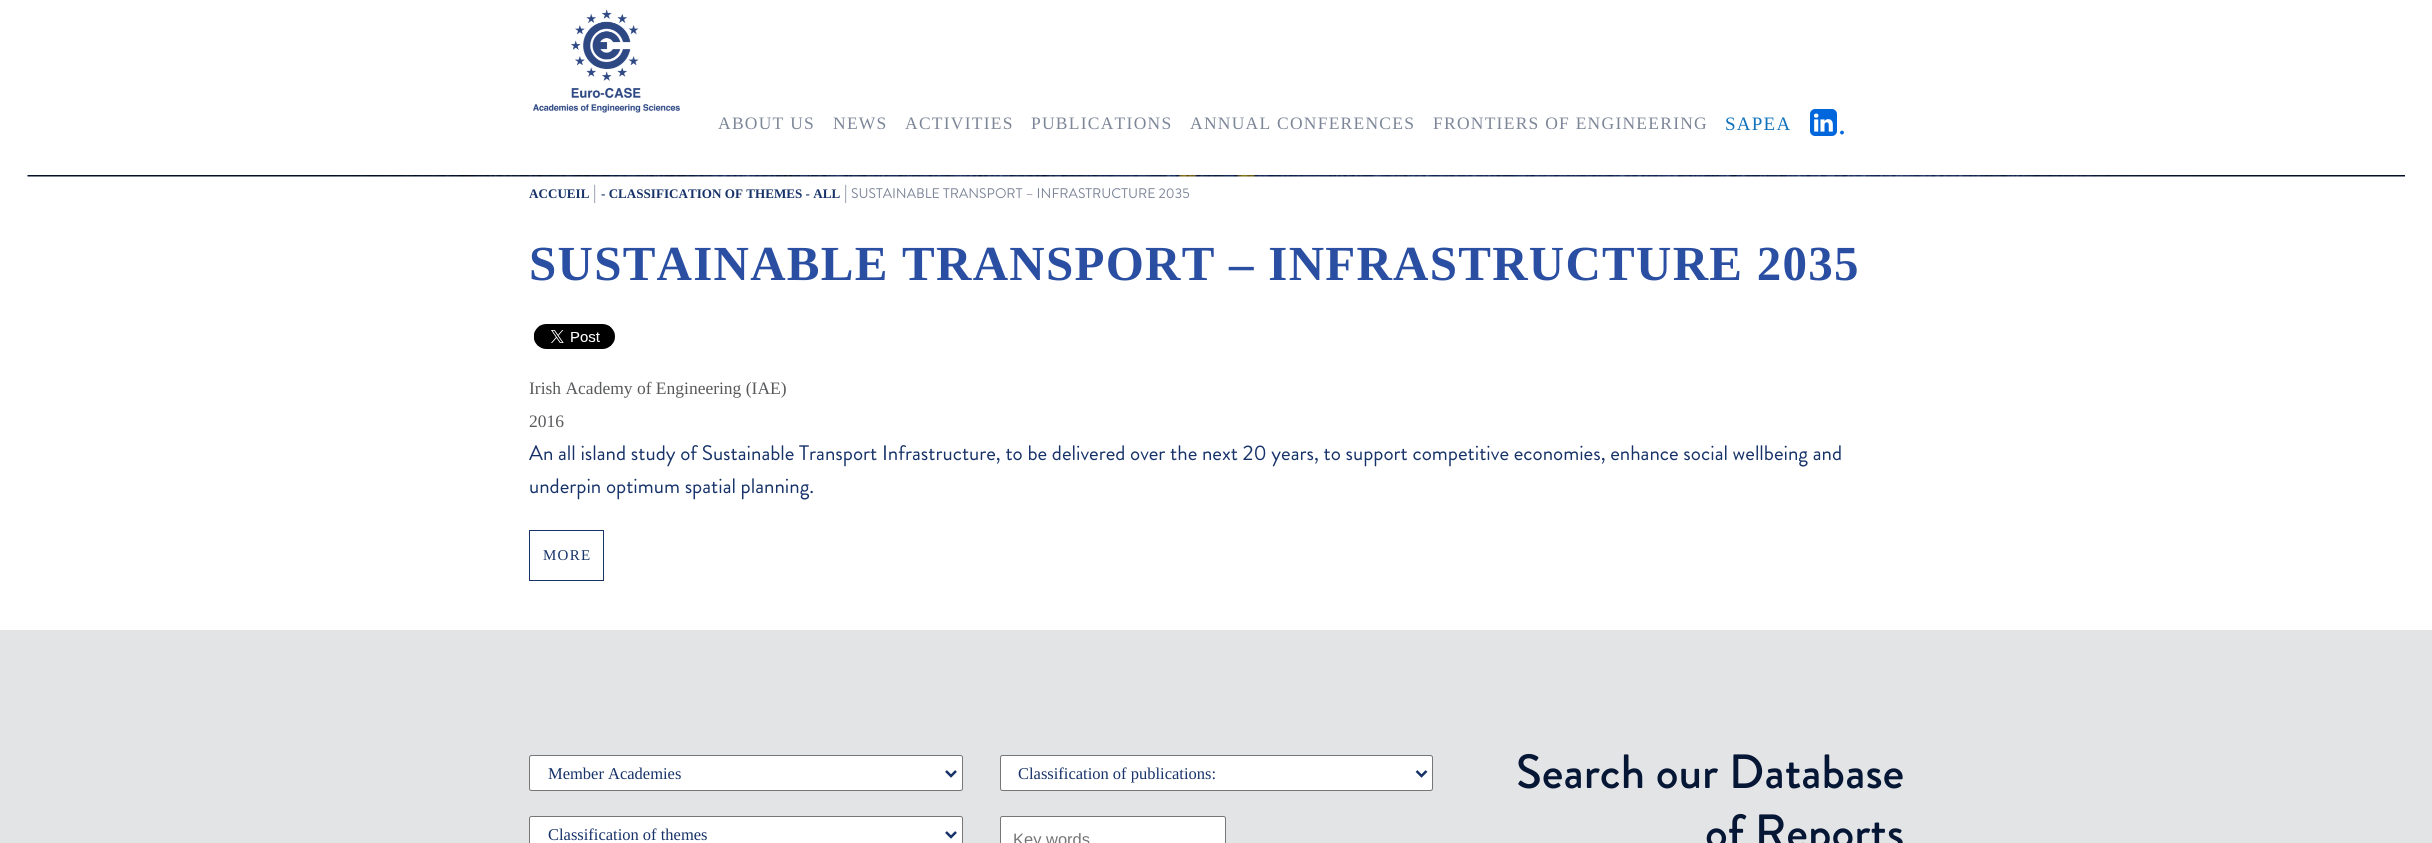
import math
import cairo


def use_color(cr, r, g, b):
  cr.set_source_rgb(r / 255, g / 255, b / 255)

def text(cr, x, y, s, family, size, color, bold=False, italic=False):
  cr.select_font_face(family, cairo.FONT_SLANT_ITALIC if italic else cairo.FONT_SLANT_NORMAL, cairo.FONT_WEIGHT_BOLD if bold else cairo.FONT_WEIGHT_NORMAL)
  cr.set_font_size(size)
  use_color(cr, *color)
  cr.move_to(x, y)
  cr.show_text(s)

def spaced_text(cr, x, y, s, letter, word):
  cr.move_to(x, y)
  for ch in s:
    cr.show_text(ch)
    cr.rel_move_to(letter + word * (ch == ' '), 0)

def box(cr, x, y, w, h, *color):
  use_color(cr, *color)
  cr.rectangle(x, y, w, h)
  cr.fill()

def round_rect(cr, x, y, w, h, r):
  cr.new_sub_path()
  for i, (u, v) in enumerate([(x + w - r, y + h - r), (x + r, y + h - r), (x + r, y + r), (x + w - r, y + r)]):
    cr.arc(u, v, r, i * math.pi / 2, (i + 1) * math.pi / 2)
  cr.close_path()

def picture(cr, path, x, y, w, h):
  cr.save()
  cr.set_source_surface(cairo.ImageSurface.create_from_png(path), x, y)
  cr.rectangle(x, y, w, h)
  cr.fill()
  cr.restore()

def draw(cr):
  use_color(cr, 255, 255, 255)
  cr.paint()
  picture(cr, "img_01.png", 533, 9, 147, 104)
  picture(cr, "img_02.png", 1810, 109, 27, 27)
  picture(cr, "img_03.png", 27, 175, 2378, 2)
  picture(cr, "img_04.png", 533, 324, 82, 25)
  cr.rectangle(529.5, 530.5, 74, 50)
  use_color(cr, 22, 50, 104)
  cr.set_line_width(1)
  cr.stroke()
  box(cr, 0, 630, 2432, 213, 227, 228, 230)
  use_color(cr, 255, 255, 255)
  round_rect(cr, 529.5, 755.5, 433, 35, 2)
  cr.fill_preserve()
  use_color(cr, 118, 118, 118)
  cr.stroke()
  cr.new_path()
  cr.move_to(946, 771)
  cr.line_to(951, 776)
  cr.line_to(956, 771)
  use_color(cr, 22, 50, 104)
  cr.set_line_width(2.5)
  cr.stroke()
  use_color(cr, 255, 255, 255)
  round_rect(cr, 529.5, 816.5, 433, 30, 2)
  cr.fill_preserve()
  use_color(cr, 118, 118, 118)
  cr.set_line_width(1)
  cr.stroke()
  cr.new_path()
  cr.move_to(946, 832)
  cr.line_to(951, 837)
  cr.line_to(956, 832)
  use_color(cr, 22, 50, 104)
  cr.set_line_width(2.5)
  cr.stroke()
  use_color(cr, 255, 255, 255)
  round_rect(cr, 1000.5, 755.5, 432, 35, 2)
  cr.fill_preserve()
  use_color(cr, 118, 118, 118)
  cr.set_line_width(1)
  cr.stroke()
  cr.new_path()
  cr.move_to(1416.5, 771)
  cr.line_to(1421.5, 776)
  cr.line_to(1426.5, 771)
  use_color(cr, 22, 50, 104)
  cr.set_line_width(2.5)
  cr.stroke()
  use_color(cr, 255, 255, 255)
  round_rect(cr, 1000.5, 816.5, 225, 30, 2)
  cr.fill_preserve()
  use_color(cr, 118, 118, 118)
  cr.set_line_width(1)
  cr.stroke()
  cr.select_font_face("Liberation Serif")
  cr.set_font_size(17.5)
  use_color(cr, 125, 134, 152)
  spaced_text(cr, 718, 129, "ABOUT US", 1.25, 0)
  spaced_text(cr, 833, 129, "NEWS", 1.25, 0)
  spaced_text(cr, 905, 129, "ACTIVITIES", 1.25, 0)
  spaced_text(cr, 1031, 129, "PUBLICATIONS", 1.25, 0)
  spaced_text(cr, 1190, 129, "ANNUAL CONFERENCES", 1.25, 0)
  spaced_text(cr, 1433, 129, "FRONTIERS OF ENGINEERING", 1.25, 0)
  cr.set_font_size(19)
  use_color(cr, 16, 114, 187)
  spaced_text(cr, 1725, 130, "SAPEA", 1.25, 0)
  cr.set_font_size(32)
  use_color(cr, 0, 102, 219)
  spaced_text(cr, 1838, 134, ".", 1.25, 0)
  text(cr, 529, 198, "ACCUEIL", "Liberation Serif", 13.1, (22, 50, 104), bold=True)
  text(cr, 593, 198, "|", "Brandon Grotesque", 17.5, (125, 134, 152))
  text(cr, 601, 198, "- CLASSIFICATION OF THEMES - ALL", "Liberation Serif", 13.1, (22, 50, 104), bold=True)
  text(cr, 844, 198, "|", "Brandon Grotesque", 17.5, (125, 134, 152))
  text(cr, 851, 198, "SUSTAINABLE TRANSPORT – INFRASTRUCTURE 2035", "Brandon Grotesque", 14, (125, 134, 152))
  cr.select_font_face("Liberation Serif", cairo.FONT_SLANT_NORMAL, cairo.FONT_WEIGHT_BOLD)
  cr.set_font_size(49)
  use_color(cr, 42, 78, 161)
  spaced_text(cr, 529, 280, "SUSTAINABLE TRANSPORT – INFRASTRUCTURE 2035", 1.25, 0)
  text(cr, 529, 394, "Irish Academy of Engineering (IAE)", "Liberation Serif", 17.5, (88, 89, 91))
  text(cr, 529, 427, "2016", "Liberation Serif", 17.5, (88, 89, 91))
  text(cr, 529, 460, "An all island study of Sustainable Transport Infrastructure, to be delivered over the next 20 years, to support competitive economies, enhance social wellbeing and", "Brandon Grotesque", 21, (22, 50, 104))
  text(cr, 529, 493, "underpin optimum spatial planning.", "Brandon Grotesque", 21, (22, 50, 104))
  cr.select_font_face("Liberation Serif")
  cr.set_font_size(15)
  spaced_text(cr, 543, 560, "MORE", 1.25, 0)
  text(cr, 548, 779, "Member Academies", "Liberation Serif", 16.5, (22, 50, 104))
  text(cr, 548, 840, "Classification of themes", "Liberation Serif", 16.5, (22, 50, 104))
  text(cr, 1018, 779, "Classification of publications:", "Liberation Serif", 16.5, (22, 50, 104))
  text(cr, 1013, 845, "Key words", "Liberation Sans", 16.5, (117, 117, 117))
  text(cr, 1516, 788, "Search our Database", "Brandon Grotesque Medium", 48, (6, 22, 53))
  text(cr, 1705, 848, "of Reports", "Brandon Grotesque Medium", 48, (6, 22, 53))


surface = cairo.ImageSurface(cairo.FORMAT_RGB24, 2432, 843)
cr = cairo.Context(surface)
options = cairo.FontOptions()
options.set_hint_metrics(cairo.HINT_METRICS_OFF)
options.set_hint_style(cairo.HINT_STYLE_NONE)
cr.set_font_options(options)
cr.set_miter_limit(4)
draw(cr)
surface.write_to_png("out.png")
